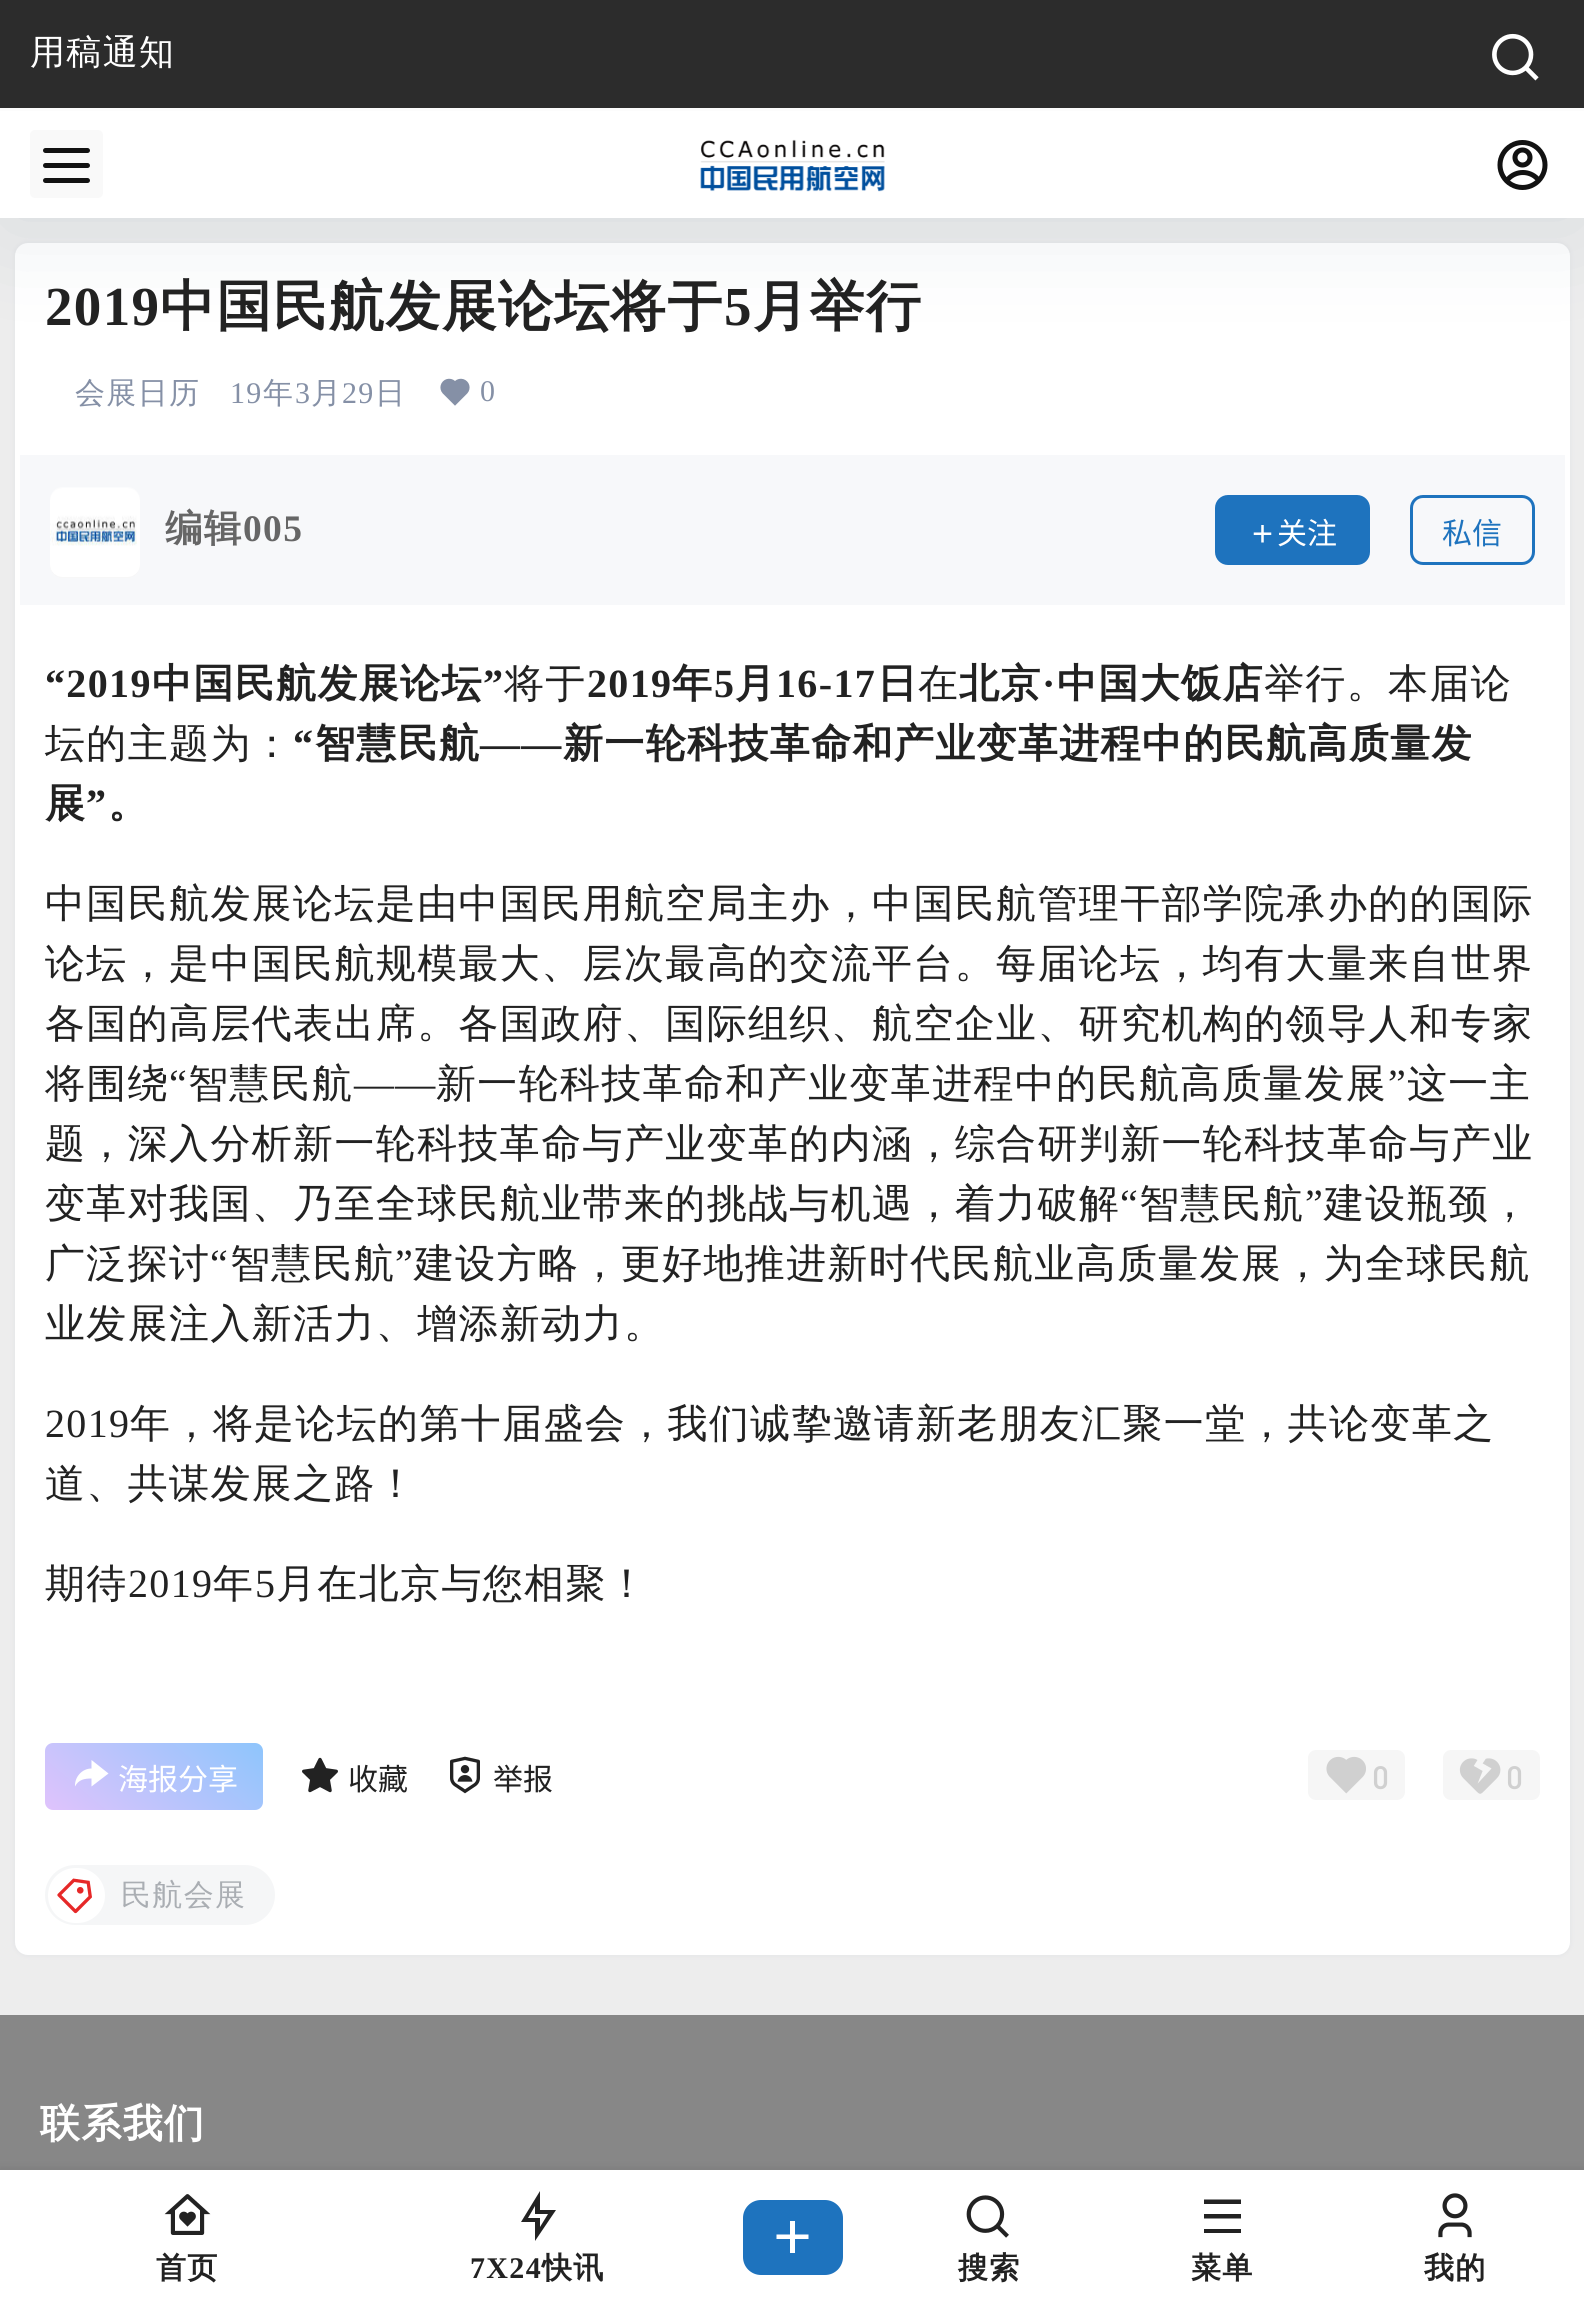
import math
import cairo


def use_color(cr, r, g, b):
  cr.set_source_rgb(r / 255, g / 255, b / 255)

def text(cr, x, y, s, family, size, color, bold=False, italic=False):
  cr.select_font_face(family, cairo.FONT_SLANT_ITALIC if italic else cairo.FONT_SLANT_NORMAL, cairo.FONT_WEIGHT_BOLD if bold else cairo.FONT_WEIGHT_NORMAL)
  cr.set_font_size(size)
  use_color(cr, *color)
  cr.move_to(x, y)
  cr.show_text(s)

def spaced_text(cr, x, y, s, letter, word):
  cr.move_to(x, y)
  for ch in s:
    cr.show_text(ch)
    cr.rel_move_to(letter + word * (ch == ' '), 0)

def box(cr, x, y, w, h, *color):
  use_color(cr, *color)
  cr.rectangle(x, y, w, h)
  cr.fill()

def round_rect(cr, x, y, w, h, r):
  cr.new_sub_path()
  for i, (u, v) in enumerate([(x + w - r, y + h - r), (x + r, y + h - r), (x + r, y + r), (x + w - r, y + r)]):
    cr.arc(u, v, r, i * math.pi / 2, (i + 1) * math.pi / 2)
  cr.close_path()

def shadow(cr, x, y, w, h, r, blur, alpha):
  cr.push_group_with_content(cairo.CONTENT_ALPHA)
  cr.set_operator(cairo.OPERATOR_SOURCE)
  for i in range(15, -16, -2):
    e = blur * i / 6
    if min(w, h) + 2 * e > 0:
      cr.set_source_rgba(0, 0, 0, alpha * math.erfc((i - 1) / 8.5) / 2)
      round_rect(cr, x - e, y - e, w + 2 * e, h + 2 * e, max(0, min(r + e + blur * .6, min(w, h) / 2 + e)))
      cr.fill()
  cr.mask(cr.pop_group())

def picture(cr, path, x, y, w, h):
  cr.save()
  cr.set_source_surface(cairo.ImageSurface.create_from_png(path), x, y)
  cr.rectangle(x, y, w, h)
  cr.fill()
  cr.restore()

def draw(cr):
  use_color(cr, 237, 237, 237)
  cr.paint()
  use_color(cr, 98, 124, 153)
  shadow(cr, 15, 243, 1555, 1712, 13, 2.5, 0.1)
  use_color(cr, 255, 255, 255)
  round_rect(cr, 15, 243, 1555, 1712, 13)
  cr.fill()
  picture(cr, "img_04.png", 440, 378, 30, 28)
  use_color(cr, 17, 58, 93)
  shadow(cr, 0, 13, 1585, 217, 0, 50, 0.1)
  box(cr, 0, 0, 1584, 108, 44, 44, 44)
  picture(cr, "img_01.png", 1492, 33, 47, 48)
  box(cr, 0, 111, 1584, 107, 255, 255, 255)
  box(cr, 0, 108, 1584, 3, 252, 252, 252)
  use_color(cr, 249, 249, 249)
  round_rect(cr, 30, 130, 73, 68, 5)
  cr.fill()
  use_color(cr, 18, 18, 18)
  round_rect(cr, 43, 148, 47, 5, 2.5)
  cr.fill()
  round_rect(cr, 43, 163, 47, 5, 2.5)
  cr.fill()
  round_rect(cr, 43, 178, 47, 5, 2.5)
  cr.fill()
  picture(cr, "img_02.png", 700, 139, 185, 53)
  picture(cr, "img_03.png", 1497, 140, 51, 50)
  box(cr, 20, 455, 1545, 150, 247, 248, 250)
  use_color(cr, 238, 238, 238)
  round_rect(cr, 50, 488, 90, 90, 13)
  cr.fill()
  picture(cr, "img_05.png", 50, 487, 90, 91)
  use_color(cr, 30, 115, 190)
  round_rect(cr, 1216.5, 496.5, 152, 67, 11.5)
  cr.fill_preserve()
  cr.set_line_width(3)
  cr.stroke()
  picture(cr, "img_06.png", 1253, 525, 19, 18)
  round_rect(cr, 1411.5, 496.5, 122, 67, 11.5)
  cr.stroke()
  gradient = cairo.LinearGradient(92, 1850, 215, 1703)
  gradient.add_color_stop_rgba(0, 0.878, 0.765, 0.988, 1)
  gradient.add_color_stop_rgba(1, 0.557, 0.773, 0.988, 1)
  cr.set_source(gradient)
  round_rect(cr, 45, 1743, 218, 67, 8)
  cr.fill()
  use_color(cr, 255, 255, 255)
  cr.new_path()
  cr.move_to(91.5, 1778.5)
  cr.curve_to(84.5, 1778.5, 78.5, 1779.5, 75, 1786.5)
  cr.curve_to(74.5, 1777, 82, 1768.5, 91.5, 1768.5)
  cr.line_to(91.5, 1760)
  cr.line_to(108.5, 1773.5)
  cr.line_to(91.5, 1786.5)
  cr.close_path()
  cr.fill()
  picture(cr, "img_07.png", 302, 1757, 36, 36)
  picture(cr, "img_08.png", 450, 1756, 30, 38)
  use_color(cr, 246, 246, 246)
  round_rect(cr, 1308, 1750, 97, 50, 8)
  cr.fill()
  picture(cr, "img_09.png", 1326, 1756, 40, 38)
  round_rect(cr, 1443, 1750, 97, 50, 8)
  cr.fill()
  picture(cr, "img_10.png", 1459, 1758, 42, 36)
  use_color(cr, 245, 246, 247)
  round_rect(cr, 45, 1865, 230, 60, 30)
  cr.fill()
  use_color(cr, 255, 255, 255)
  round_rect(cr, 48, 1868, 57, 55, 27.5)
  cr.fill()
  picture(cr, "img_11.png", 57, 1878, 35, 36)
  box(cr, 0, 2015, 1584, 155, 135, 135, 135)
  use_color(cr, 26, 26, 26)
  shadow(cr, 0, 2168, 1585, 137, 0, 4, 0.1)
  box(cr, 0, 2170, 1584, 137, 255, 255, 255)
  picture(cr, "img_12.png", 164, 2194, 47, 41)
  use_color(cr, 34, 34, 34)
  cr.new_path()
  cr.move_to(540, 2210)
  cr.line_to(556, 2210)
  cr.line_to(535, 2241)
  cr.line_to(535, 2222)
  cr.line_to(521, 2222)
  cr.line_to(540, 2191)
  cr.close_path()
  cr.move_to(535, 2214)
  cr.line_to(535, 2206)
  cr.line_to(528, 2218)
  cr.line_to(540, 2218)
  cr.line_to(540, 2227)
  cr.line_to(548, 2214)
  cr.close_path()
  cr.fill()
  use_color(cr, 30, 115, 190)
  round_rect(cr, 743, 2200, 100, 75, 18)
  cr.fill()
  use_color(cr, 255, 255, 255)
  cr.new_path()
  cr.move_to(790, 2234.5)
  cr.line_to(790, 2221)
  cr.line_to(795, 2221)
  cr.line_to(795, 2234.5)
  cr.line_to(808.5, 2234.5)
  cr.line_to(808.5, 2239)
  cr.line_to(795, 2239)
  cr.line_to(795, 2253)
  cr.line_to(790, 2253)
  cr.line_to(790, 2239)
  cr.line_to(776.5, 2239)
  cr.line_to(776.5, 2234.5)
  cr.close_path()
  cr.fill()
  picture(cr, "img_13.png", 966, 2195, 43, 43)
  use_color(cr, 34, 34, 34)
  cr.new_path()
  cr.move_to(1204, 2199.5)
  cr.line_to(1241, 2199.5)
  cr.line_to(1241, 2204)
  cr.line_to(1204, 2204)
  cr.close_path()
  cr.move_to(1204, 2214)
  cr.line_to(1241, 2214)
  cr.line_to(1241, 2218.5)
  cr.line_to(1204, 2218.5)
  cr.close_path()
  cr.move_to(1204, 2229)
  cr.line_to(1241, 2229)
  cr.line_to(1241, 2233)
  cr.line_to(1204, 2233)
  cr.close_path()
  cr.fill()
  picture(cr, "img_14.png", 1438, 2193, 34, 45)
  cr.select_font_face("WenQuanYi Zen Hei Medium")
  cr.set_font_size(35)
  use_color(cr, 255, 255, 255)
  spaced_text(cr, 30, 64, "用稿通知", 1.35, 0)
  cr.select_font_face("Liberation Serif", cairo.FONT_SLANT_NORMAL, cairo.FONT_WEIGHT_BOLD)
  cr.set_font_size(55)
  use_color(cr, 34, 34, 34)
  spaced_text(cr, 45, 325, "2019", 1.35, 0)
  cr.select_font_face("WenQuanYi Zen Hei", cairo.FONT_SLANT_NORMAL, cairo.FONT_WEIGHT_BOLD)
  spaced_text(cr, 160, 325, "中国民航发展论坛将于", 1.35, 0)
  cr.select_font_face("Liberation Serif", cairo.FONT_SLANT_NORMAL, cairo.FONT_WEIGHT_BOLD)
  spaced_text(cr, 724, 325, "5", 1.35, 0)
  cr.select_font_face("WenQuanYi Zen Hei", cairo.FONT_SLANT_NORMAL, cairo.FONT_WEIGHT_BOLD)
  spaced_text(cr, 753, 325, "月举行", 1.35, 0)
  cr.select_font_face("WenQuanYi Zen Hei Medium")
  cr.set_font_size(30)
  use_color(cr, 133, 144, 166)
  spaced_text(cr, 75, 403, "会展日历", 1.35, 0)
  cr.select_font_face("Liberation Serif")
  spaced_text(cr, 230, 403, "19", 1.35, 0)
  cr.select_font_face("WenQuanYi Zen Hei Medium")
  spaced_text(cr, 263, 403, "年", 1.35, 0)
  cr.select_font_face("Liberation Serif")
  spaced_text(cr, 295, 403, "3", 1.35, 0)
  cr.select_font_face("WenQuanYi Zen Hei Medium")
  spaced_text(cr, 311, 403, "月", 1.35, 0)
  cr.select_font_face("Liberation Serif")
  spaced_text(cr, 342, 403, "29", 1.35, 0)
  cr.select_font_face("WenQuanYi Zen Hei Medium")
  spaced_text(cr, 375, 403, "日", 1.35, 0)
  cr.select_font_face("Liberation Serif")
  spaced_text(cr, 480, 401, "0", 1.35, 0)
  cr.select_font_face("WenQuanYi Zen Hei", cairo.FONT_SLANT_NORMAL, cairo.FONT_WEIGHT_BOLD)
  cr.set_font_size(37.5)
  use_color(cr, 102, 102, 102)
  spaced_text(cr, 165, 541, "编辑", 1.35, 0)
  cr.select_font_face("Liberation Serif", cairo.FONT_SLANT_NORMAL, cairo.FONT_WEIGHT_BOLD)
  spaced_text(cr, 243, 541, "005", 1.35, 0)
  text(cr, 1277, 544, "关注", "Noto Sans CJK SC", 30, (255, 255, 255))
  text(cr, 1442, 544, "私信", "Noto Sans CJK SC", 30, (30, 115, 190))
  cr.select_font_face("Liberation Serif", cairo.FONT_SLANT_NORMAL, cairo.FONT_WEIGHT_BOLD)
  cr.set_font_size(40)
  use_color(cr, 34, 34, 34)
  spaced_text(cr, 45, 697, "“2019", 1.35, 0)
  cr.select_font_face("WenQuanYi Zen Hei", cairo.FONT_SLANT_NORMAL, cairo.FONT_WEIGHT_BOLD)
  spaced_text(cr, 152, 697, "中国民航发展论坛", 1.35, 0)
  cr.select_font_face("Liberation Serif", cairo.FONT_SLANT_NORMAL, cairo.FONT_WEIGHT_BOLD)
  spaced_text(cr, 483, 697, "”", 1.35, 0)
  cr.select_font_face("WenQuanYi Zen Hei Medium")
  spaced_text(cr, 504, 697, "将于", 1.35, 0)
  cr.select_font_face("Liberation Serif", cairo.FONT_SLANT_NORMAL, cairo.FONT_WEIGHT_BOLD)
  spaced_text(cr, 587, 697, "2019", 1.35, 0)
  cr.select_font_face("WenQuanYi Zen Hei", cairo.FONT_SLANT_NORMAL, cairo.FONT_WEIGHT_BOLD)
  spaced_text(cr, 672, 697, "年", 1.35, 0)
  cr.select_font_face("Liberation Serif", cairo.FONT_SLANT_NORMAL, cairo.FONT_WEIGHT_BOLD)
  spaced_text(cr, 714, 697, "5", 1.35, 0)
  cr.select_font_face("WenQuanYi Zen Hei", cairo.FONT_SLANT_NORMAL, cairo.FONT_WEIGHT_BOLD)
  spaced_text(cr, 735, 697, "月", 1.35, 0)
  cr.select_font_face("Liberation Serif", cairo.FONT_SLANT_NORMAL, cairo.FONT_WEIGHT_BOLD)
  spaced_text(cr, 776, 697, "16-17", 1.35, 0)
  cr.select_font_face("WenQuanYi Zen Hei", cairo.FONT_SLANT_NORMAL, cairo.FONT_WEIGHT_BOLD)
  spaced_text(cr, 877, 697, "日", 1.35, 0)
  cr.select_font_face("WenQuanYi Zen Hei Medium")
  spaced_text(cr, 918, 697, "在", 1.35, 0)
  cr.select_font_face("WenQuanYi Zen Hei", cairo.FONT_SLANT_NORMAL, cairo.FONT_WEIGHT_BOLD)
  spaced_text(cr, 959, 697, "北京", 1.35, 0)
  cr.select_font_face("Liberation Serif", cairo.FONT_SLANT_NORMAL, cairo.FONT_WEIGHT_BOLD)
  spaced_text(cr, 1042, 697, "·", 1.35, 0)
  cr.select_font_face("WenQuanYi Zen Hei", cairo.FONT_SLANT_NORMAL, cairo.FONT_WEIGHT_BOLD)
  spaced_text(cr, 1057, 697, "中国大饭店", 1.35, 0)
  cr.select_font_face("WenQuanYi Zen Hei Medium")
  spaced_text(cr, 1264, 697, "举行。本届论", 1.35, 0)
  spaced_text(cr, 45, 757, "坛的主题为：", 1.35, 0)
  cr.select_font_face("Liberation Serif", cairo.FONT_SLANT_NORMAL, cairo.FONT_WEIGHT_BOLD)
  spaced_text(cr, 293, 757, "“", 1.35, 0)
  cr.select_font_face("WenQuanYi Zen Hei", cairo.FONT_SLANT_NORMAL, cairo.FONT_WEIGHT_BOLD)
  spaced_text(cr, 315, 757, "智慧民航", 1.35, 0)
  spaced_text(cr, 563, 757, "新一轮科技革命和产业变革进程中的民航高质量发", 1.35, 0)
  cr.select_font_face("Liberation Serif", cairo.FONT_SLANT_NORMAL, cairo.FONT_WEIGHT_BOLD)
  spaced_text(cr, 480, 757, "——", 1.35, 0)
  cr.select_font_face("WenQuanYi Zen Hei", cairo.FONT_SLANT_NORMAL, cairo.FONT_WEIGHT_BOLD)
  spaced_text(cr, 45, 817, "展", 1.35, 0)
  cr.select_font_face("Liberation Serif", cairo.FONT_SLANT_NORMAL, cairo.FONT_WEIGHT_BOLD)
  spaced_text(cr, 86, 817, "”", 1.35, 0)
  cr.select_font_face("WenQuanYi Zen Hei", cairo.FONT_SLANT_NORMAL, cairo.FONT_WEIGHT_BOLD)
  spaced_text(cr, 108, 817, "。", 1.35, 0)
  cr.select_font_face("WenQuanYi Zen Hei Medium")
  spaced_text(cr, 45, 917, "中国民航发展论坛是由中国民用航空局主办，中国民航管理干部学院承办的的国际", 1.35, 0)
  spaced_text(cr, 45, 977, "论坛，是中国民航规模最大、层次最高的交流平台。每届论坛，均有大量来自世界", 1.35, 0)
  spaced_text(cr, 45, 1037, "各国的高层代表出席。各国政府、国际组织、航空企业、研究机构的领导人和专家", 1.35, 0)
  spaced_text(cr, 45, 1097, "将围绕", 1.35, 0)
  cr.select_font_face("Liberation Serif")
  spaced_text(cr, 169, 1097, "“", 1.35, 0)
  cr.select_font_face("WenQuanYi Zen Hei Medium")
  spaced_text(cr, 188, 1097, "智慧民航", 1.35, 0)
  spaced_text(cr, 436, 1097, "新一轮科技革命和产业变革进程中的民航高质量发展", 1.35, 0)
  cr.select_font_face("Liberation Serif")
  spaced_text(cr, 1388, 1097, "”", 1.35, 0)
  cr.select_font_face("WenQuanYi Zen Hei Medium")
  spaced_text(cr, 1407, 1097, "这一主", 1.35, 0)
  cr.select_font_face("Liberation Serif")
  spaced_text(cr, 354, 1097, "——", 1.35, 0)
  cr.select_font_face("WenQuanYi Zen Hei Medium")
  spaced_text(cr, 45, 1157, "题，深入分析新一轮科技革命与产业变革的内涵，综合研判新一轮科技革命与产业", 1.35, 0)
  spaced_text(cr, 45, 1217, "变革对我国、乃至全球民航业带来的挑战与机遇，着力破解", 1.35, 0)
  cr.select_font_face("Liberation Serif")
  spaced_text(cr, 1120, 1217, "“", 1.35, 0)
  cr.select_font_face("WenQuanYi Zen Hei Medium")
  spaced_text(cr, 1139, 1217, "智慧民航", 1.35, 0)
  cr.select_font_face("Liberation Serif")
  spaced_text(cr, 1305, 1217, "”", 1.35, 0)
  cr.select_font_face("WenQuanYi Zen Hei Medium")
  spaced_text(cr, 1324, 1217, "建设瓶颈，", 1.35, 0)
  spaced_text(cr, 45, 1277, "广泛探讨", 1.35, 0)
  cr.select_font_face("Liberation Serif")
  spaced_text(cr, 210, 1277, "“", 1.35, 0)
  cr.select_font_face("WenQuanYi Zen Hei Medium")
  spaced_text(cr, 230, 1277, "智慧民航", 1.35, 0)
  cr.select_font_face("Liberation Serif")
  spaced_text(cr, 395, 1277, "”", 1.35, 0)
  cr.select_font_face("WenQuanYi Zen Hei Medium")
  spaced_text(cr, 414, 1277, "建设方略，更好地推进新时代民航业高质量发展，为全球民航", 1.35, 0)
  spaced_text(cr, 45, 1337, "业发展注入新活力、增添新动力。", 1.35, 0)
  cr.select_font_face("Liberation Serif")
  spaced_text(cr, 45, 1437, "2019", 1.35, 0)
  cr.select_font_face("WenQuanYi Zen Hei Medium")
  spaced_text(cr, 130, 1437, "年，将是论坛的第十届盛会，我们诚挚邀请新老朋友汇聚一堂，共论变革之", 1.35, 0)
  spaced_text(cr, 45, 1497, "道、共谋发展之路！", 1.35, 0)
  spaced_text(cr, 45, 1597, "期待", 1.35, 0)
  cr.select_font_face("Liberation Serif")
  spaced_text(cr, 128, 1597, "2019", 1.35, 0)
  cr.select_font_face("WenQuanYi Zen Hei Medium")
  spaced_text(cr, 213, 1597, "年", 1.35, 0)
  cr.select_font_face("Liberation Serif")
  spaced_text(cr, 255, 1597, "5", 1.35, 0)
  cr.select_font_face("WenQuanYi Zen Hei Medium")
  spaced_text(cr, 276, 1597, "月在北京与您相聚！", 1.35, 0)
  text(cr, 118, 1790, "海报分享", "Noto Sans CJK SC", 30, (255, 255, 255))
  text(cr, 348, 1790, "收藏", "Noto Sans CJK SC", 30, (34, 34, 34))
  text(cr, 493, 1790, "举报", "Noto Sans CJK SC", 30, (34, 34, 34))
  cr.select_font_face("DIN Medium")
  cr.set_font_size(32)
  use_color(cr, 208, 208, 208)
  spaced_text(cr, 1372, 1789, "0", 1.35, 0)
  spaced_text(cr, 1506, 1789, "0", 1.35, 0)
  cr.select_font_face("WenQuanYi Zen Hei Medium")
  cr.set_font_size(30)
  use_color(cr, 170, 174, 179)
  spaced_text(cr, 121, 1905, "民航会展", 1.35, 0)
  cr.select_font_face("WenQuanYi Zen Hei", cairo.FONT_SLANT_NORMAL, cairo.FONT_WEIGHT_BOLD)
  cr.set_font_size(40)
  use_color(cr, 255, 255, 255)
  spaced_text(cr, 40, 2137, "联系我们", 1.35, 0)
  cr.set_font_size(30)
  use_color(cr, 34, 34, 34)
  spaced_text(cr, 156, 2278, "首页", 1.35, 0)
  cr.select_font_face("Liberation Serif", cairo.FONT_SLANT_NORMAL, cairo.FONT_WEIGHT_BOLD)
  spaced_text(cr, 470, 2278, "7X24", 1.35, 0)
  cr.select_font_face("WenQuanYi Zen Hei", cairo.FONT_SLANT_NORMAL, cairo.FONT_WEIGHT_BOLD)
  spaced_text(cr, 542, 2278, "快讯", 1.35, 0)
  spaced_text(cr, 958, 2278, "搜索", 1.35, 0)
  spaced_text(cr, 1191, 2278, "菜单", 1.35, 0)
  spaced_text(cr, 1424, 2278, "我的", 1.35, 0)


surface = cairo.ImageSurface(cairo.FORMAT_RGB24, 1584, 2307)
cr = cairo.Context(surface)
options = cairo.FontOptions()
options.set_hint_metrics(cairo.HINT_METRICS_OFF)
options.set_hint_style(cairo.HINT_STYLE_NONE)
cr.set_font_options(options)
cr.set_miter_limit(4)
draw(cr)
surface.write_to_png("out.png")
